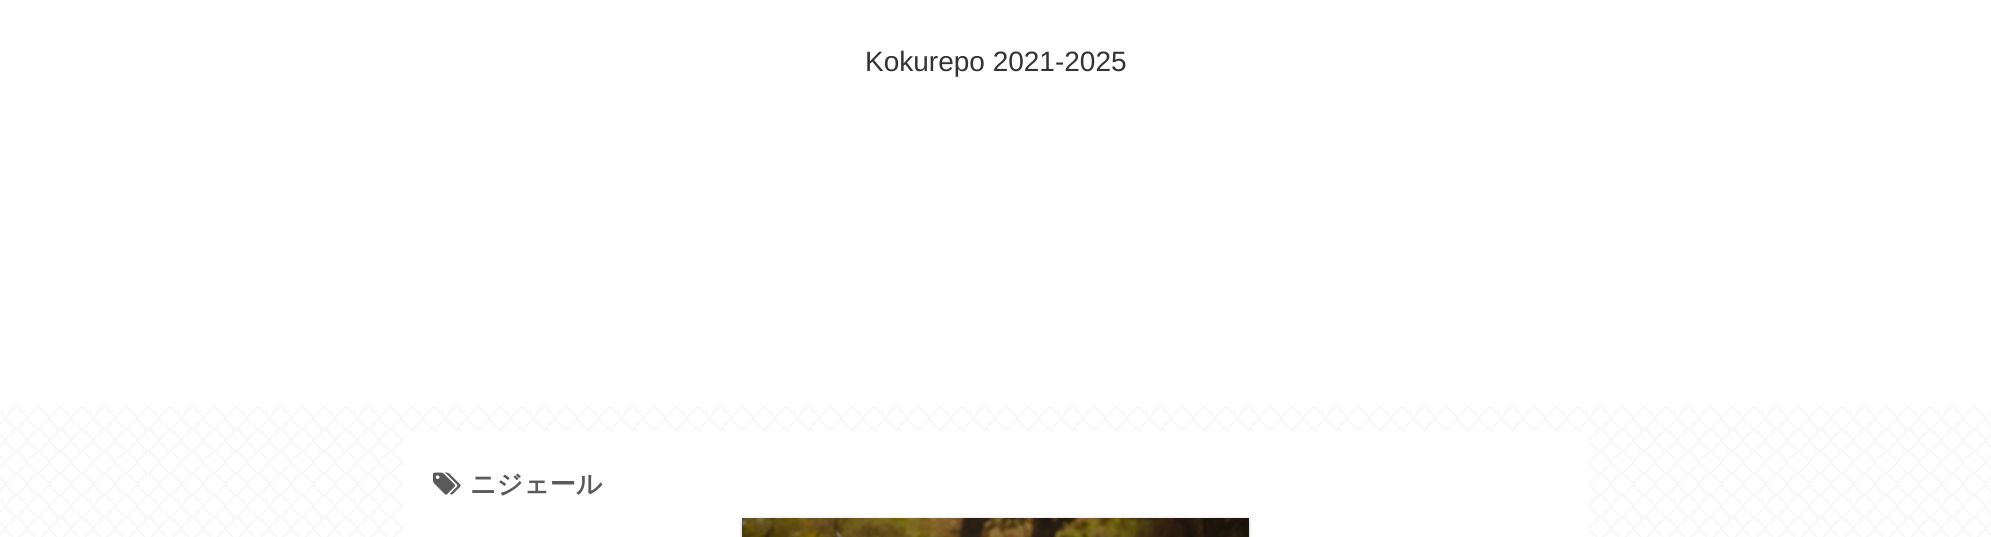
import math
import cairo


def use_color(cr, r, g, b):
  cr.set_source_rgb(r / 255, g / 255, b / 255)

def text(cr, x, y, s, family, size, color, bold=False, italic=False):
  cr.select_font_face(family, cairo.FONT_SLANT_ITALIC if italic else cairo.FONT_SLANT_NORMAL, cairo.FONT_WEIGHT_BOLD if bold else cairo.FONT_WEIGHT_NORMAL)
  cr.set_font_size(size)
  use_color(cr, *color)
  cr.move_to(x, y)
  cr.show_text(s)

def round_rect(cr, x, y, w, h, r):
  cr.new_sub_path()
  for i, (u, v) in enumerate([(x + w - r, y + h - r), (x + r, y + h - r), (x + r, y + r), (x + w - r, y + r)]):
    cr.arc(u, v, r, i * math.pi / 2, (i + 1) * math.pi / 2)
  cr.close_path()

def shadow(cr, x, y, w, h, r, blur, alpha):
  cr.push_group_with_content(cairo.CONTENT_ALPHA)
  cr.set_operator(cairo.OPERATOR_SOURCE)
  for i in range(15, -16, -2):
    e = blur * i / 6
    if min(w, h) + 2 * e > 0:
      cr.set_source_rgba(0, 0, 0, alpha * math.erfc((i - 1) / 8.5) / 2)
      round_rect(cr, x - e, y - e, w + 2 * e, h + 2 * e, max(0, min(r + e + blur * .6, min(w, h) / 2 + e)))
      cr.fill()
  cr.mask(cr.pop_group())

def picture(cr, path, x, y, w, h):
  cr.save()
  cr.set_source_surface(cairo.ImageSurface.create_from_png(path), x, y)
  cr.rectangle(x, y, w, h)
  cr.fill()
  cr.restore()

def draw(cr):
  use_color(cr, 255, 255, 255)
  cr.paint()
  picture(cr, "img_01.png", 0, 407, 1991, 130)
  use_color(cr, 255, 255, 255)
  round_rect(cr, 403, 431, 1186, 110, 4)
  cr.fill()
  picture(cr, "img_02.png", 433, 472, 28, 23)
  use_color(cr, 0, 0, 0)
  shadow(cr, 742, 520, 507, 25, 3, 1.5, 0.2)
  shadow(cr, 742, 518, 507, 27, 3, 1.5, 0.12)
  picture(cr, "img_03.png", 742, 518, 507, 19)
  text(cr, 865, 71, "Kokurepo 2021-2025", "Liberation Sans", 28, (51, 51, 51))
  text(cr, 470, 493, "ニジェール", "WenQuanYi Zen Hei", 26, (90, 90, 90), bold=True)


surface = cairo.ImageSurface(cairo.FORMAT_RGB24, 1991, 537)
cr = cairo.Context(surface)
options = cairo.FontOptions()
options.set_hint_metrics(cairo.HINT_METRICS_OFF)
options.set_hint_style(cairo.HINT_STYLE_NONE)
cr.set_font_options(options)
cr.set_miter_limit(4)
draw(cr)
surface.write_to_png("out.png")
